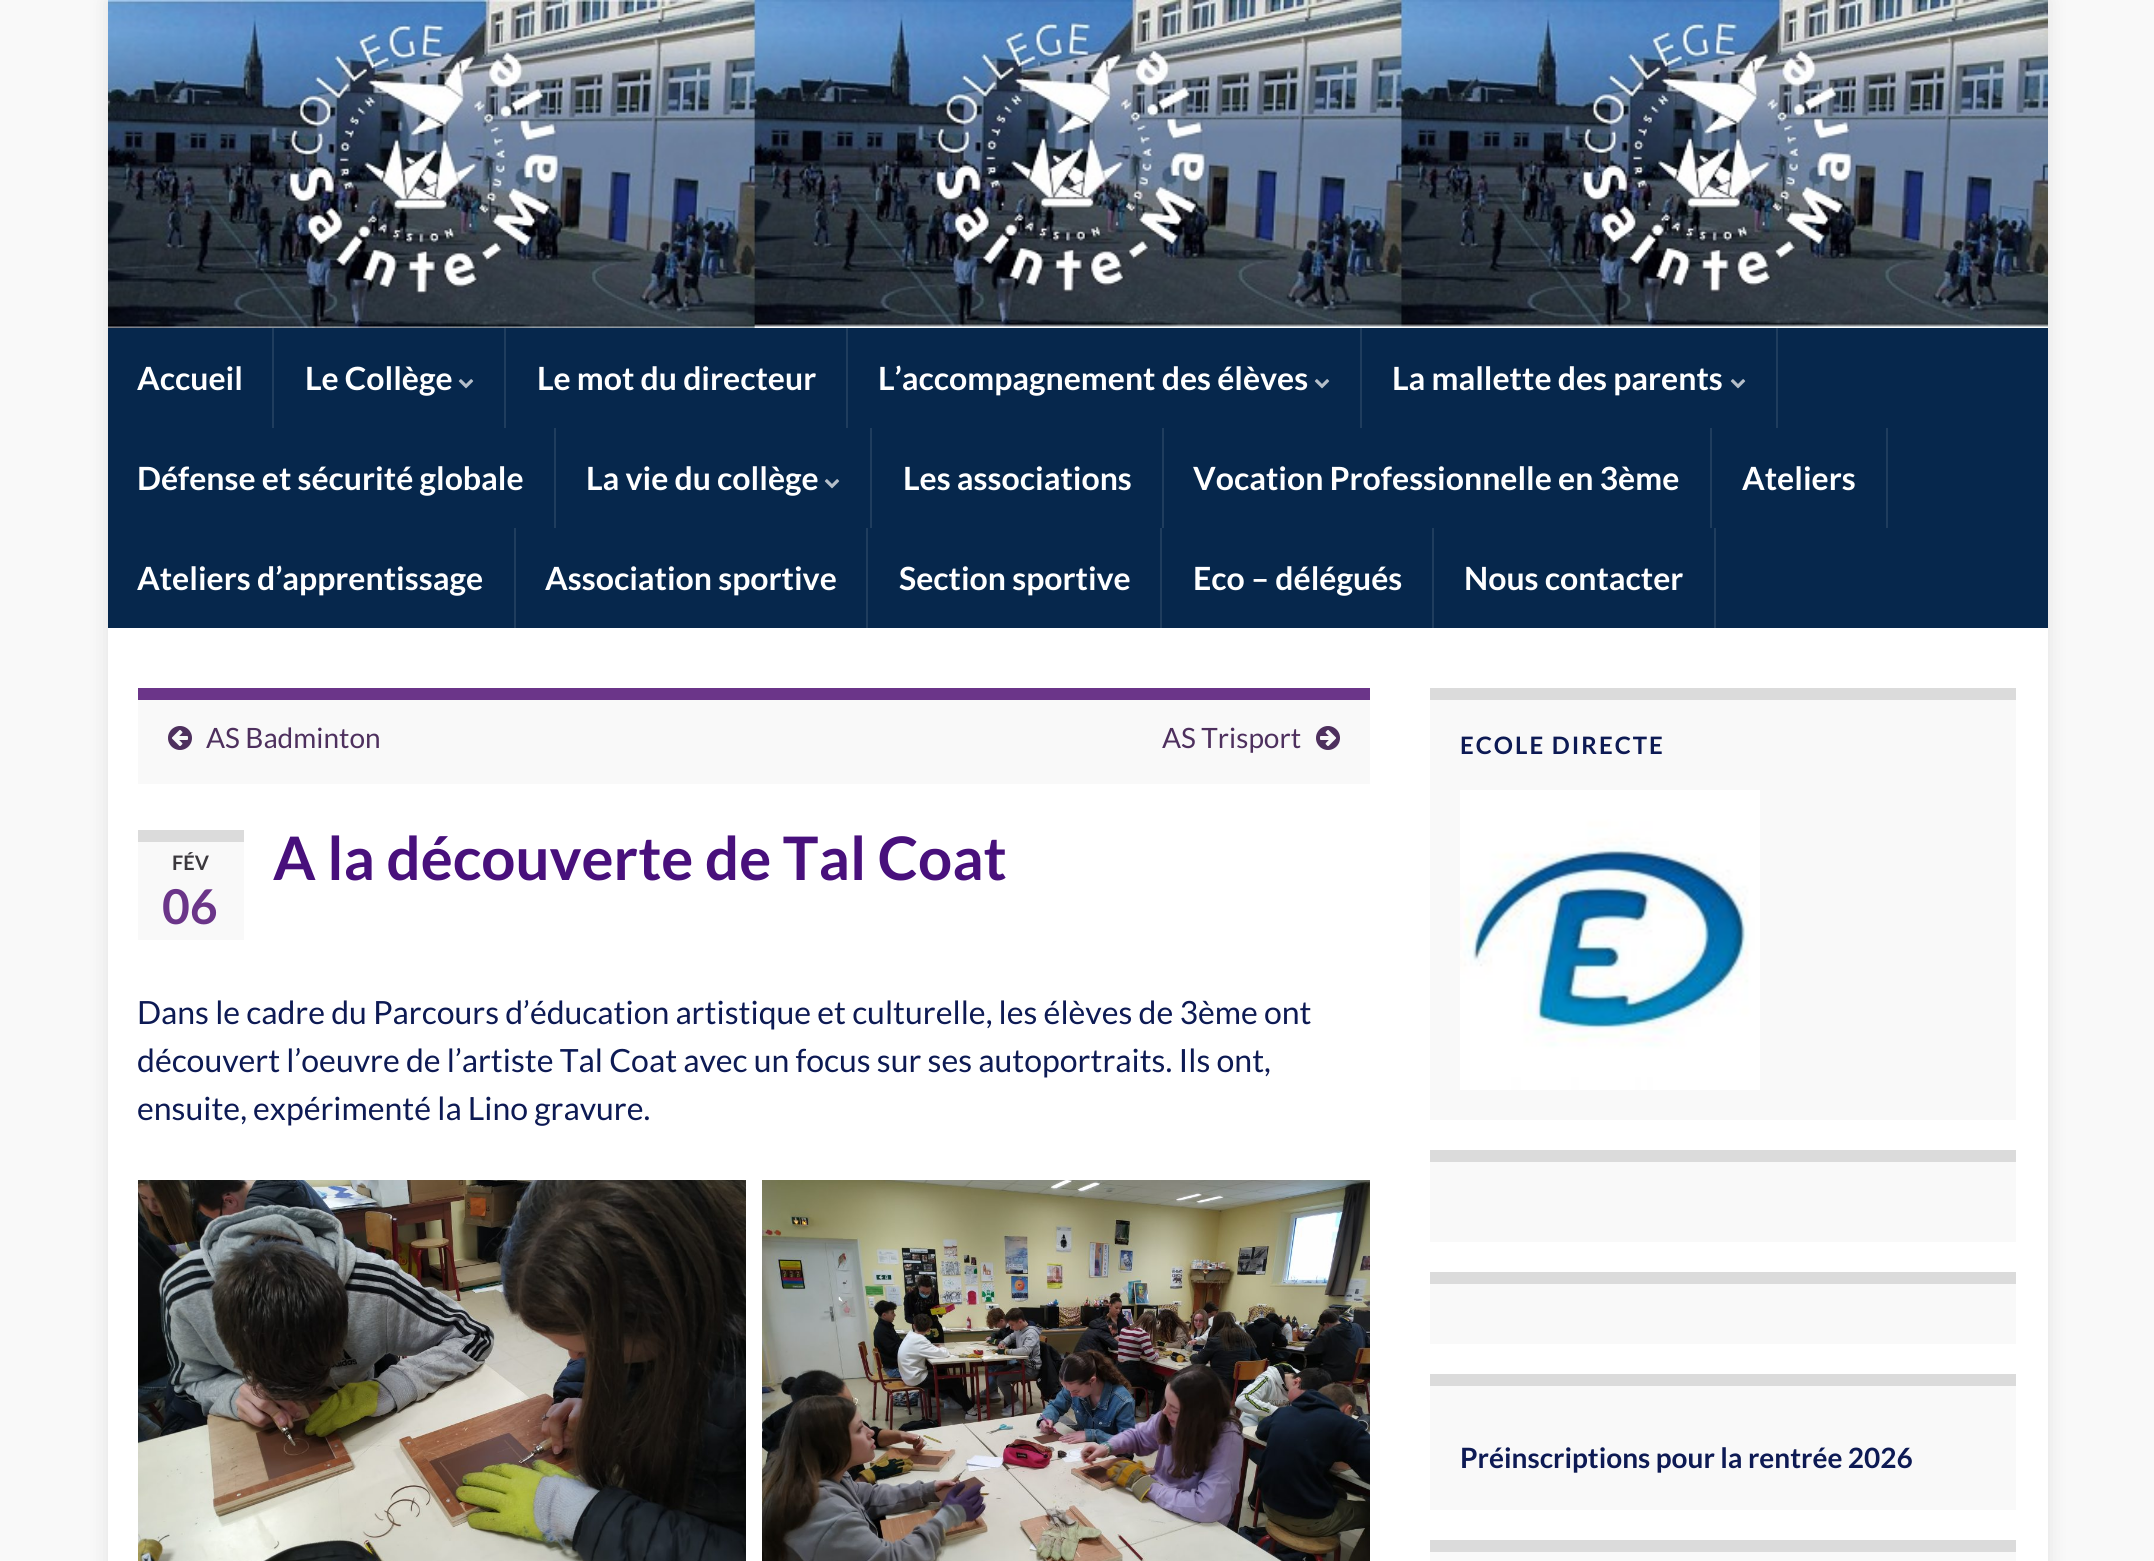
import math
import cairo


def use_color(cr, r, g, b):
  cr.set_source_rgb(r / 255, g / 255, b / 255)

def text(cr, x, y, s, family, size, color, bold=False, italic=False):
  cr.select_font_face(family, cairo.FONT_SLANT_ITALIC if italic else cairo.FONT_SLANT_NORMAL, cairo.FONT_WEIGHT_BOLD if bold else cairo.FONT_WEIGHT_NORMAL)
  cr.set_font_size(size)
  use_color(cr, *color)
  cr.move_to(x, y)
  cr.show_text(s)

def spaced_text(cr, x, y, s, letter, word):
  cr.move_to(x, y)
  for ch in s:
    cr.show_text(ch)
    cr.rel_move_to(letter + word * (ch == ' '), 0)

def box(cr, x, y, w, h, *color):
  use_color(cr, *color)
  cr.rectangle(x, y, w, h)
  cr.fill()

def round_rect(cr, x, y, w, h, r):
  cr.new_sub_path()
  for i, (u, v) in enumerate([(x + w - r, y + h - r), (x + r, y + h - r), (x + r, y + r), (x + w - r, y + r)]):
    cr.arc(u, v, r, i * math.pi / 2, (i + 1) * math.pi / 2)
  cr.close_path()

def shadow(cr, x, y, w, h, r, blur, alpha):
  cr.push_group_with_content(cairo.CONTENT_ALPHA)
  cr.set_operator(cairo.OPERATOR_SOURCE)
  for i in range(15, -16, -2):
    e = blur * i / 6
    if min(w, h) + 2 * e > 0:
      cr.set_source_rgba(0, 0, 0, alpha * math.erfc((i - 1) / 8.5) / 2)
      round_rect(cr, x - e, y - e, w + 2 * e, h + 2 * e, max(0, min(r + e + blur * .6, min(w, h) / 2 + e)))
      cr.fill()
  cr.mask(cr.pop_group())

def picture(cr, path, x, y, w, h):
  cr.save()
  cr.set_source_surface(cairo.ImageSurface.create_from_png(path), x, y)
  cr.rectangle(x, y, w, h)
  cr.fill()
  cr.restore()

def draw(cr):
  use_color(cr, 249, 249, 249)
  cr.paint()
  use_color(cr, 0, 0, 0)
  shadow(cr, 108, 0, 1940, 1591, 0, 10, 0.1)
  picture(cr, "img_01.png", 108, 0, 1940, 328)
  box(cr, 108, 328, 1940, 300, 6, 39, 76)
  box(cr, 272, 328, 2, 100, 31, 61, 94)
  box(cr, 504, 328, 2, 100, 31, 61, 94)
  picture(cr, "img_02.png", 458, 379, 16, 10)
  box(cr, 846, 328, 2, 100, 31, 61, 94)
  box(cr, 1360, 328, 2, 100, 31, 61, 94)
  picture(cr, "img_02.png", 1314, 379, 16, 10)
  box(cr, 1776, 328, 2, 100, 31, 61, 94)
  picture(cr, "img_02.png", 1730, 379, 16, 10)
  box(cr, 554, 428, 2, 100, 31, 61, 94)
  box(cr, 870, 428, 2, 100, 31, 61, 94)
  picture(cr, "img_02.png", 824, 479, 16, 10)
  box(cr, 1162, 428, 2, 100, 31, 61, 94)
  box(cr, 1710, 428, 2, 100, 31, 61, 94)
  box(cr, 1886, 428, 2, 100, 31, 61, 94)
  box(cr, 514, 528, 2, 100, 31, 61, 94)
  box(cr, 866, 528, 2, 100, 31, 61, 94)
  box(cr, 1160, 528, 2, 100, 31, 61, 94)
  box(cr, 1432, 528, 2, 100, 31, 61, 94)
  box(cr, 1714, 528, 2, 100, 31, 61, 94)
  box(cr, 108, 628, 1940, 933, 255, 255, 255)
  box(cr, 138, 700, 1232, 84, 249, 249, 249)
  box(cr, 138, 688, 1232, 12, 107, 53, 137)
  picture(cr, "img_03.png", 168, 726, 24, 24)
  picture(cr, "img_04.png", 1316, 726, 24, 24)
  box(cr, 138, 842, 106, 98, 249, 249, 249)
  box(cr, 138, 830, 106, 12, 219, 219, 219)
  picture(cr, "img_05.png", 138, 1180, 608, 381)
  picture(cr, "img_06.png", 762, 1180, 608, 381)
  box(cr, 1430, 700, 586, 420, 249, 249, 249)
  box(cr, 1430, 688, 586, 12, 219, 219, 219)
  picture(cr, "img_07.png", 1460, 790, 300, 300)
  box(cr, 1430, 1162, 586, 80, 249, 249, 249)
  box(cr, 1430, 1150, 586, 12, 219, 219, 219)
  box(cr, 1430, 1284, 586, 60, 249, 249, 249)
  box(cr, 1430, 1272, 586, 12, 219, 219, 219)
  box(cr, 1430, 1386, 586, 124, 249, 249, 249)
  box(cr, 1430, 1374, 586, 12, 219, 219, 219)
  box(cr, 1430, 1552, 586, 9, 249, 249, 249)
  box(cr, 1430, 1540, 586, 12, 219, 219, 219)
  text(cr, 137, 390, "Accueil", "Lato", 32, (255, 255, 255), bold=True)
  text(cr, 305, 390, "Le Collège", "Lato", 32, (255, 255, 255), bold=True)
  text(cr, 537, 390, "Le mot du directeur", "Lato", 32, (255, 255, 255), bold=True)
  text(cr, 878, 390, "L’accompagnement des élèves", "Lato", 32, (255, 255, 255), bold=True)
  text(cr, 1392, 390, "La mallette des parents", "Lato", 32, (255, 255, 255), bold=True)
  text(cr, 137, 490, "Défense et sécurité globale", "Lato", 32, (255, 255, 255), bold=True)
  text(cr, 586, 490, "La vie du collège", "Lato", 32, (255, 255, 255), bold=True)
  text(cr, 903, 490, "Les associations", "Lato", 32, (255, 255, 255), bold=True)
  text(cr, 1193, 490, "Vocation Professionnelle en 3ème", "Lato", 32, (255, 255, 255), bold=True)
  text(cr, 1742, 490, "Ateliers", "Lato", 32, (255, 255, 255), bold=True)
  text(cr, 137, 590, "Ateliers d’apprentissage", "Lato", 32, (255, 255, 255), bold=True)
  text(cr, 545, 590, "Association sportive", "Lato", 32, (255, 255, 255), bold=True)
  text(cr, 899, 590, "Section sportive", "Lato", 32, (255, 255, 255), bold=True)
  text(cr, 1193, 590, "Eco – délégués", "Lato", 32, (255, 255, 255), bold=True)
  text(cr, 1464, 590, "Nous contacter", "Lato", 32, (255, 255, 255), bold=True)
  text(cr, 206, 748, "AS Badminton", "Lato", 28, (78, 48, 94))
  text(cr, 1162, 748, "AS Trisport", "Lato", 28, (78, 48, 94))
  text(cr, 172, 870, "FÉV", "Lato", 20, (59, 56, 61), bold=True)
  text(cr, 162, 924, "06", "Lato", 48, (107, 53, 137), bold=True)
  text(cr, 273, 880, "A la découverte de Tal Coat", "Lato", 60, (72, 16, 124), bold=True)
  text(cr, 137, 1024, "Dans le cadre du Parcours d’éducation artistique et culturelle, les élèves de 3ème ont", "Lato", 32, (13, 26, 84))
  text(cr, 137, 1072, "découvert l’oeuvre de l’artiste Tal Coat avec un focus sur ses autoportraits. Ils ont,", "Lato", 32, (13, 26, 84))
  text(cr, 137, 1120, "ensuite, expérimenté la Lino gravure.", "Lato", 32, (13, 26, 84))
  cr.select_font_face("Lato", cairo.FONT_SLANT_NORMAL, cairo.FONT_WEIGHT_BOLD)
  cr.set_font_size(24)
  spaced_text(cr, 1460, 754, "ECOLE DIRECTE", 2, 0)
  text(cr, 1460, 1468, "Préinscriptions pour la rentrée 2026", "Lato", 28, (13, 26, 84), bold=True)


surface = cairo.ImageSurface(cairo.FORMAT_RGB24, 2154, 1561)
cr = cairo.Context(surface)
options = cairo.FontOptions()
options.set_hint_metrics(cairo.HINT_METRICS_OFF)
options.set_hint_style(cairo.HINT_STYLE_NONE)
cr.set_font_options(options)
cr.set_miter_limit(4)
draw(cr)
surface.write_to_png("out.png")
